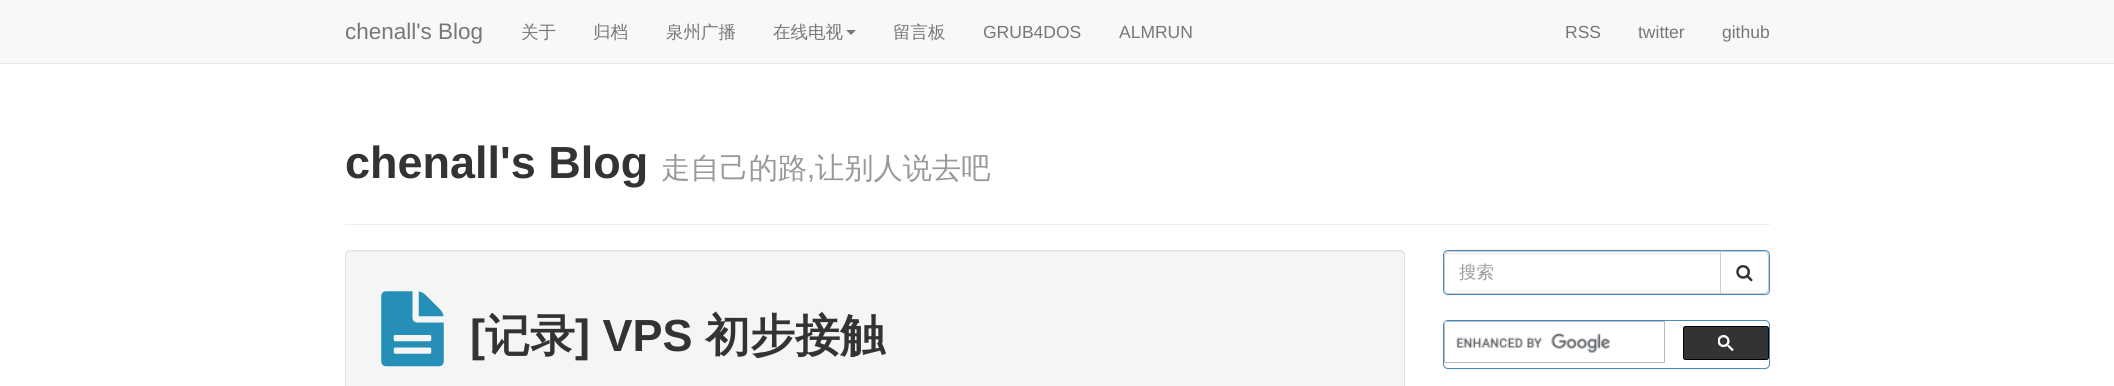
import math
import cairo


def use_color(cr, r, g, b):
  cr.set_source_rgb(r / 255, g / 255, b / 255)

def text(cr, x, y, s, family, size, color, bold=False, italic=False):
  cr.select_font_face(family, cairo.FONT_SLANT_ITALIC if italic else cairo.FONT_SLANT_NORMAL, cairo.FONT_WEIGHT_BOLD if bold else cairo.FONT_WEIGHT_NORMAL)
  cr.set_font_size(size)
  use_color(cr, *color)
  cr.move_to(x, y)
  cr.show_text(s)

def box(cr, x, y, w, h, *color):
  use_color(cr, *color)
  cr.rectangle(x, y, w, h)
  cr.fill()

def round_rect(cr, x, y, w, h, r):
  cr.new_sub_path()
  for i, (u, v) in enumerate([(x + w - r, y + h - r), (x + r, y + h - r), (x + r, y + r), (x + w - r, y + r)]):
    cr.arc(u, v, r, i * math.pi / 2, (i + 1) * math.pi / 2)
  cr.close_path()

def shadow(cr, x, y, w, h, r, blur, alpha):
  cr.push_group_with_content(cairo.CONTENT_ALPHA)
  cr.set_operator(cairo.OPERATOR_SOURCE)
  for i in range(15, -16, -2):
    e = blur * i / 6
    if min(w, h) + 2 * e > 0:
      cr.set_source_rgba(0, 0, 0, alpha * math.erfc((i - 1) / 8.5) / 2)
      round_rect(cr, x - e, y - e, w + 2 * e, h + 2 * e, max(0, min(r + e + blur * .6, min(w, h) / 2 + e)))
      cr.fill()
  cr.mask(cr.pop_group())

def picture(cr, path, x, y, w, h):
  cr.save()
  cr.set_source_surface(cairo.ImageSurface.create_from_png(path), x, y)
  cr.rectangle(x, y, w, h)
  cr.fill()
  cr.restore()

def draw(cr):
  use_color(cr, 255, 255, 255)
  cr.paint()
  box(cr, 0, 0, 2114, 63, 248, 248, 248)
  box(cr, 0, 63, 2114, 1, 231, 231, 231)
  use_color(cr, 119, 119, 119)
  cr.new_path()
  cr.move_to(846, 30)
  cr.line_to(856, 30)
  cr.line_to(851, 35)
  cr.close_path()
  cr.fill()
  box(cr, 345, 224, 1425, 1, 238, 238, 238)
  use_color(cr, 0, 0, 0)
  shadow(cr, 1443, 251, 327, 45, 5, 0.5, 0.05)
  use_color(cr, 255, 255, 255)
  round_rect(cr, 1443.5, 250.5, 326, 44, 4.5)
  cr.fill_preserve()
  use_color(cr, 66, 139, 202)
  cr.set_line_width(1)
  cr.stroke()
  use_color(cr, 255, 255, 255)
  cr.new_path()
  cr.move_to(1449, 251)
  cr.line_to(1721, 251)
  cr.line_to(1721, 294)
  cr.line_to(1449, 294)
  cr.curve_to(1446, 294, 1444, 292, 1444, 289)
  cr.line_to(1444, 256)
  cr.curve_to(1444, 253, 1446, 251, 1449, 251)
  cr.close_path()
  cr.fill()
  use_color(cr, 236, 236, 236)
  cr.new_path()
  cr.move_to(1449, 254)
  cr.line_to(1720, 254)
  cr.line_to(1720, 253)
  cr.line_to(1449, 253)
  cr.curve_to(1446, 253, 1445, 255, 1445, 258)
  cr.curve_to(1445, 255, 1447, 254, 1449, 254)
  cr.close_path()
  cr.fill()
  cr.new_path()
  cr.move_to(1449, 251.5)
  cr.line_to(1720.5, 251.5)
  cr.line_to(1720.5, 293.5)
  cr.line_to(1449, 293.5)
  cr.curve_to(1446.5, 293.5, 1444.5, 291.5, 1444.5, 289)
  cr.line_to(1444.5, 256)
  cr.curve_to(1444.5, 253.5, 1446.5, 251.5, 1449, 251.5)
  cr.close_path()
  use_color(cr, 204, 204, 204)
  cr.stroke()
  use_color(cr, 255, 255, 255)
  cr.new_path()
  cr.move_to(1720.5, 251.5)
  cr.line_to(1764, 251.5)
  cr.curve_to(1766.5, 251.5, 1768.5, 253.5, 1768.5, 256)
  cr.line_to(1768.5, 289)
  cr.curve_to(1768.5, 291.5, 1766.5, 293.5, 1764, 293.5)
  cr.line_to(1720.5, 293.5)
  cr.close_path()
  cr.fill_preserve()
  use_color(cr, 204, 204, 204)
  cr.stroke()
  picture(cr, "img_01.png", 1736, 265, 17, 17)
  use_color(cr, 0, 0, 0)
  shadow(cr, 1443, 321, 327, 49, 5, 0.5, 0.05)
  use_color(cr, 255, 255, 255)
  round_rect(cr, 1443.5, 320.5, 326, 48, 4.5)
  cr.fill_preserve()
  use_color(cr, 66, 139, 202)
  cr.stroke()
  box(cr, 1445, 322, 1, 1, 255, 255, 255)
  cr.rectangle(1444.5, 321.5, 220, 41)
  use_color(cr, 187, 187, 187)
  cr.stroke()
  picture(cr, "img_02.png", 1456, 333, 154, 20)
  use_color(cr, 51, 51, 51)
  round_rect(cr, 1683.5, 326.5, 85, 33, 2)
  cr.fill_preserve()
  use_color(cr, 0, 0, 0)
  cr.stroke()
  picture(cr, "img_03.png", 1718, 335, 16, 16)
  use_color(cr, 245, 245, 245)
  round_rect(cr, 345, 250, 1060, 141, 5)
  cr.fill()
  use_color(cr, 233, 233, 233)
  cr.new_path()
  cr.move_to(350, 252)
  cr.line_to(1400, 252)
  cr.curve_to(1402, 252, 1404, 254, 1404, 256)
  cr.curve_to(1404, 253, 1403, 251, 1400, 251)
  cr.line_to(350, 251)
  cr.curve_to(347, 251, 346, 253, 346, 256)
  cr.curve_to(346, 254, 348, 252, 350, 252)
  cr.close_path()
  cr.fill()
  round_rect(cr, 345.5, 250.5, 1059, 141, 4.5)
  use_color(cr, 227, 227, 227)
  cr.stroke()
  picture(cr, "img_04.png", 381, 291, 63, 76)
  text(cr, 345, 39, "chenall's Blog", "Liberation Sans", 22.5, (119, 119, 119))
  text(cr, 521, 38, "关于", "WenQuanYi Zen Hei Medium", 17.5, (119, 119, 119))
  text(cr, 593, 38, "归档", "WenQuanYi Zen Hei Medium", 17.5, (119, 119, 119))
  text(cr, 666, 38, "泉州广播", "WenQuanYi Zen Hei Medium", 17.5, (119, 119, 119))
  text(cr, 773, 38, "在线电视", "WenQuanYi Zen Hei Medium", 17.5, (119, 119, 119))
  text(cr, 893, 38, "留言板", "WenQuanYi Zen Hei Medium", 17.5, (119, 119, 119))
  text(cr, 983, 38, "GRUB4DOS", "Liberation Sans", 17.5, (119, 119, 119))
  text(cr, 1119, 38, "ALMRUN", "Liberation Sans", 17.5, (119, 119, 119))
  text(cr, 1565, 38, "RSS", "Liberation Sans", 17.5, (119, 119, 119))
  text(cr, 1638, 38, "twitter", "Liberation Sans", 17.5, (119, 119, 119))
  text(cr, 1722, 38, "github", "Liberation Sans", 17.5, (119, 119, 119))
  text(cr, 345, 178, "chenall's Blog", "Liberation Sans", 45, (51, 51, 51), bold=True)
  text(cr, 661, 178, "走自己的路", "WenQuanYi Zen Hei Medium", 29.25, (153, 153, 153))
  text(cr, 807, 178, ",", "Liberation Sans", 29.25, (153, 153, 153))
  text(cr, 815, 178, "让别人说去吧", "WenQuanYi Zen Hei Medium", 29.25, (153, 153, 153))
  text(cr, 1459, 278, "搜索", "WenQuanYi Zen Hei Medium", 17.5, (153, 153, 153))
  text(cr, 470, 351, "[", "Liberation Sans", 45, (51, 51, 51), bold=True)
  text(cr, 485, 351, "记录", "WenQuanYi Zen Hei", 45, (51, 51, 51), bold=True)
  text(cr, 575, 351, "] VPS", "Liberation Sans", 45, (51, 51, 51), bold=True)
  text(cr, 705, 351, "初步接触", "WenQuanYi Zen Hei", 45, (51, 51, 51), bold=True)


surface = cairo.ImageSurface(cairo.FORMAT_RGB24, 2114, 386)
cr = cairo.Context(surface)
options = cairo.FontOptions()
options.set_hint_metrics(cairo.HINT_METRICS_OFF)
options.set_hint_style(cairo.HINT_STYLE_NONE)
cr.set_font_options(options)
cr.set_miter_limit(4)
draw(cr)
surface.write_to_png("out.png")
